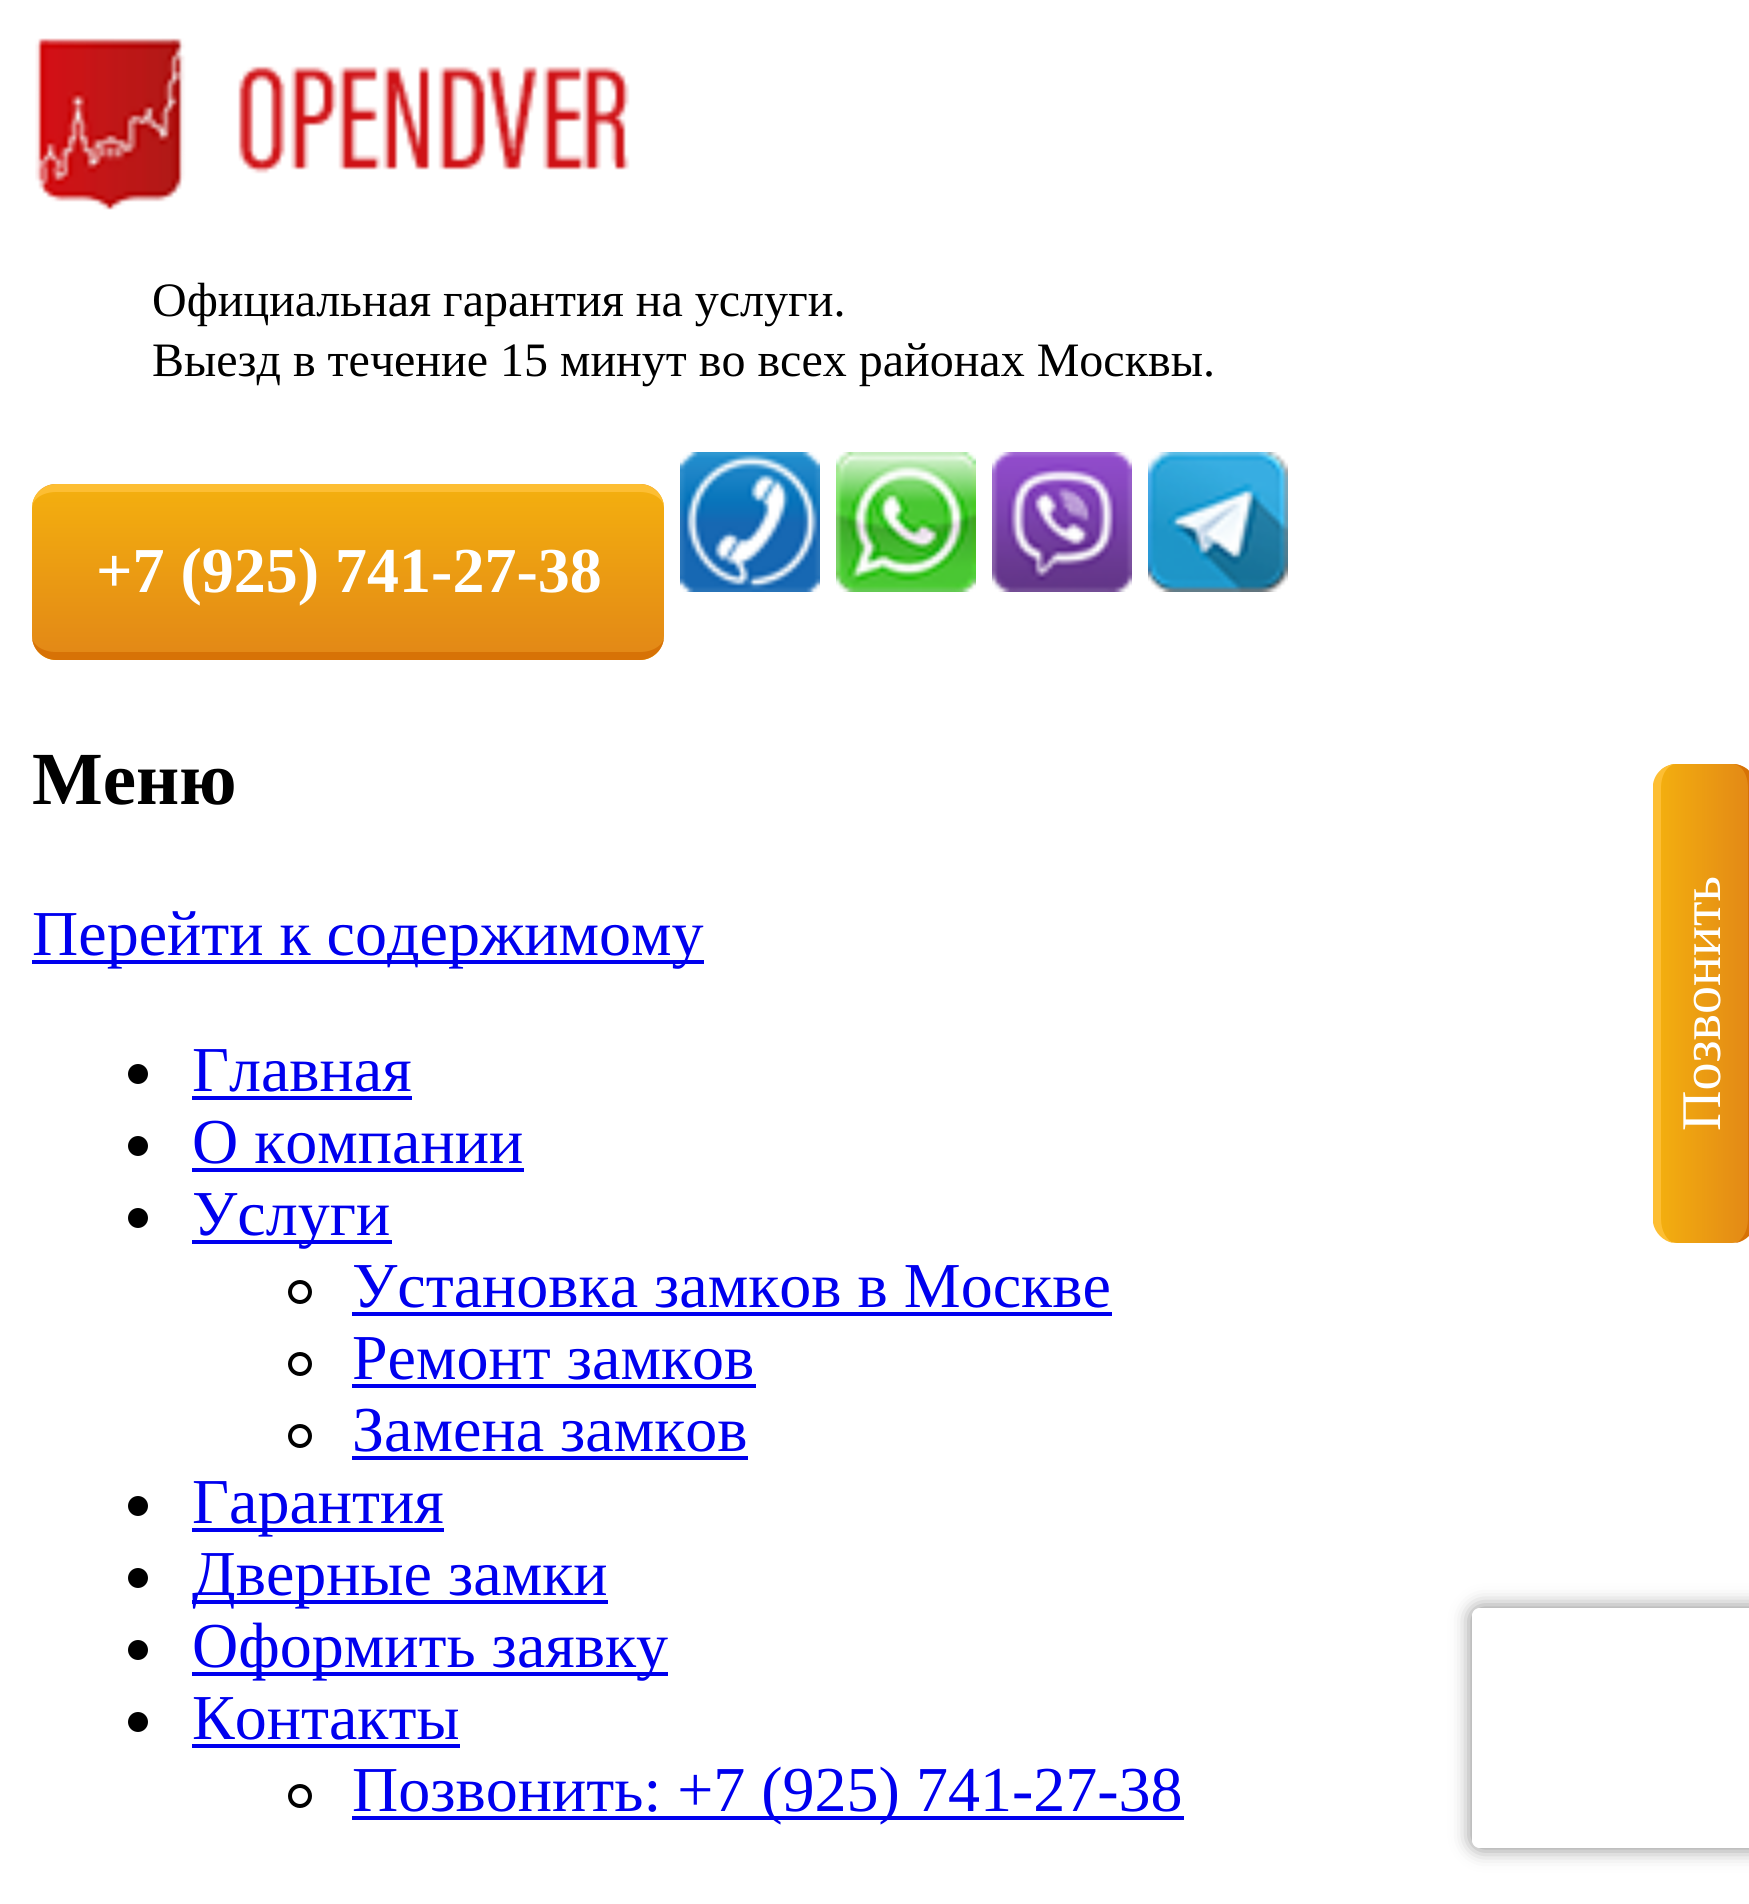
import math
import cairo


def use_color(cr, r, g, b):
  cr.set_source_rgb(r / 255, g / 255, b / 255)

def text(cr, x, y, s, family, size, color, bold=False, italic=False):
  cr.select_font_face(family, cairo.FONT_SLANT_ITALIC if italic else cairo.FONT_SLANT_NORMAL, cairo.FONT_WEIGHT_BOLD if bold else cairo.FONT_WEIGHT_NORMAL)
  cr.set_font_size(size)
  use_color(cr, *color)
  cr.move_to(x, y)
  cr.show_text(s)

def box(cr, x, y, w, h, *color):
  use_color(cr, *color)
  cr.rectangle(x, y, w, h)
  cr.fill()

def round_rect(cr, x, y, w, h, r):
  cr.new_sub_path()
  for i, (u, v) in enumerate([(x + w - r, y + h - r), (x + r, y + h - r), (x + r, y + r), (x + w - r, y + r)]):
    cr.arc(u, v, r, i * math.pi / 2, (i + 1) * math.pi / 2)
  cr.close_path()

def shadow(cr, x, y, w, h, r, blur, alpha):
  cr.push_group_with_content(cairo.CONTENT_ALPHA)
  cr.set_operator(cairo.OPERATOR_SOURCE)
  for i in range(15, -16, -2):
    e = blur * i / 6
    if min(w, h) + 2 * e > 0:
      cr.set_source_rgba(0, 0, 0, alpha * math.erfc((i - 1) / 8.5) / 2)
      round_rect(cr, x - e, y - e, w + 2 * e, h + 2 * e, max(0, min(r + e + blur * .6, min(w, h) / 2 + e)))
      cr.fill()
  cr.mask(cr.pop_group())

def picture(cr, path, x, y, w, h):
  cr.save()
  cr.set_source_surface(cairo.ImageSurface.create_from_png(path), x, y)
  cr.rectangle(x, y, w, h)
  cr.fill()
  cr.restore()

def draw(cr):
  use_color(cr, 255, 255, 255)
  cr.paint()
  picture(cr, "img_01.png", 35, 38, 595, 172)
  cr.save()
  round_rect(cr, 32, 484, 632, 176, 24)
  cr.clip()
  gradient = cairo.LinearGradient(348, 332, 348, 492)
  gradient.add_color_stop_rgba(0, 0.953, 0.682, 0.059, 1)
  gradient.add_color_stop_rgba(1, 0.89, 0.537, 0.086, 1)
  cr.set_source(gradient)
  cr.rectangle(32, 484, 632, 8)
  cr.fill()
  gradient = cairo.LinearGradient(348, 492, 348, 652)
  gradient.add_color_stop_rgba(0, 0.953, 0.682, 0.059, 1)
  gradient.add_color_stop_rgba(1, 0.89, 0.537, 0.086, 1)
  cr.set_source(gradient)
  cr.rectangle(32, 492, 632, 160)
  cr.fill()
  gradient = cairo.LinearGradient(348, 652, 348, 812)
  gradient.add_color_stop_rgba(0, 0.953, 0.682, 0.059, 1)
  gradient.add_color_stop_rgba(1, 0.89, 0.537, 0.086, 1)
  cr.set_source(gradient)
  cr.rectangle(32, 652, 632, 8)
  cr.fill()
  cr.restore()
  use_color(cr, 253, 190, 51)
  cr.new_path()
  cr.move_to(56, 484)
  cr.curve_to(43, 484, 32, 495, 32, 508)
  cr.curve_to(32, 499, 43, 492, 56, 492)
  cr.line_to(640, 492)
  cr.curve_to(653, 492, 664, 499, 664, 508)
  cr.curve_to(664, 495, 653, 484, 640, 484)
  cr.close_path()
  cr.fill()
  use_color(cr, 215, 114, 6)
  cr.new_path()
  cr.move_to(640, 660)
  cr.curve_to(653, 660, 664, 649, 664, 636)
  cr.curve_to(664, 645, 653, 652, 640, 652)
  cr.line_to(56, 652)
  cr.curve_to(43, 652, 32, 645, 32, 636)
  cr.curve_to(32, 649, 43, 660, 56, 660)
  cr.close_path()
  cr.fill()
  picture(cr, "img_02.png", 680, 452, 140, 140)
  picture(cr, "img_03.png", 836, 452, 140, 140)
  picture(cr, "img_04.png", 992, 452, 140, 140)
  picture(cr, "img_05.png", 1148, 452, 140, 140)
  box(cr, 32, 960, 672, 4, 0, 0, 238)
  use_color(cr, 0, 0, 0)
  cr.arc(138, 1074, 10, 0, 2 * math.pi)
  cr.fill()
  box(cr, 192, 1096, 220, 4, 0, 0, 238)
  use_color(cr, 0, 0, 0)
  cr.arc(138, 1146, 10, 0, 2 * math.pi)
  cr.fill()
  box(cr, 192, 1168, 332, 4, 0, 0, 238)
  use_color(cr, 0, 0, 0)
  cr.arc(138, 1218, 10, 0, 2 * math.pi)
  cr.fill()
  box(cr, 192, 1240, 200, 4, 0, 0, 238)
  cr.arc(300, 1292, 10, 0, 2 * math.pi)
  use_color(cr, 0, 0, 0)
  cr.set_line_width(4)
  cr.stroke()
  box(cr, 352, 1312, 760, 4, 0, 0, 238)
  cr.arc(300, 1364, 10, 0, 2 * math.pi)
  use_color(cr, 0, 0, 0)
  cr.stroke()
  box(cr, 352, 1384, 404, 4, 0, 0, 238)
  cr.arc(300, 1436, 10, 0, 2 * math.pi)
  use_color(cr, 0, 0, 0)
  cr.stroke()
  box(cr, 352, 1456, 396, 4, 0, 0, 238)
  use_color(cr, 0, 0, 0)
  cr.arc(138, 1506, 10, 0, 2 * math.pi)
  cr.fill()
  box(cr, 192, 1528, 252, 4, 0, 0, 238)
  use_color(cr, 0, 0, 0)
  cr.arc(138, 1578, 10, 0, 2 * math.pi)
  cr.fill()
  box(cr, 192, 1600, 416, 4, 0, 0, 238)
  use_color(cr, 0, 0, 0)
  cr.arc(138, 1650, 10, 0, 2 * math.pi)
  cr.fill()
  box(cr, 192, 1672, 476, 4, 0, 0, 238)
  use_color(cr, 0, 0, 0)
  cr.arc(138, 1722, 10, 0, 2 * math.pi)
  cr.fill()
  box(cr, 192, 1744, 268, 4, 0, 0, 238)
  cr.arc(300, 1796, 10, 0, 2 * math.pi)
  use_color(cr, 0, 0, 0)
  cr.stroke()
  box(cr, 352, 1816, 832, 4, 0, 0, 238)
  gradient = cairo.LinearGradient(1661, 1003, 1748, 1003)
  gradient.add_color_stop_rgba(0, 0.953, 0.682, 0.059, 1)
  gradient.add_color_stop_rgba(1, 0.89, 0.537, 0.086, 1)
  cr.set_source(gradient)
  cr.new_path()
  cr.move_to(1748, 1236)
  cr.curve_to(1744, 1240, 1738, 1243, 1732, 1243)
  cr.line_to(1677, 1243)
  cr.curve_to(1671, 1243, 1665, 1240, 1661, 1236)
  cr.line_to(1661, 770)
  cr.curve_to(1664, 767, 1669, 765, 1673, 764)
  cr.line_to(1736, 764)
  cr.curve_to(1740, 765, 1745, 767, 1748, 770)
  cr.close_path()
  cr.fill()
  use_color(cr, 253, 190, 51)
  cr.new_path()
  cr.move_to(1661, 1219)
  cr.curve_to(1661, 1231, 1667, 1241, 1674, 1243)
  cr.line_to(1673, 1243)
  cr.curve_to(1663, 1241, 1655, 1233, 1653, 1223)
  cr.line_to(1653, 784)
  cr.curve_to(1655, 772, 1665, 764, 1677, 764)
  cr.curve_to(1668, 764, 1661, 774, 1661, 788)
  cr.close_path()
  cr.fill()
  use_color(cr, 215, 114, 6)
  cr.new_path()
  cr.move_to(1735, 1243)
  cr.curve_to(1742, 1241, 1748, 1231, 1748, 1219)
  cr.line_to(1748, 788)
  cr.curve_to(1748, 774, 1741, 764, 1732, 764)
  cr.curve_to(1744, 764, 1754, 772, 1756, 784)
  cr.line_to(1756, 1223)
  cr.curve_to(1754, 1233, 1746, 1241, 1736, 1243)
  cr.close_path()
  cr.fill()
  cr.save()
  cr.set_fill_rule(cairo.FILL_RULE_EVEN_ODD)
  cr.new_path()
  cr.move_to(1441, 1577)
  cr.line_to(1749, 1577)
  cr.line_to(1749, 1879)
  cr.line_to(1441, 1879)
  cr.close_path()
  cr.move_to(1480, 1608)
  cr.line_to(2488, 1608)
  cr.curve_to(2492.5, 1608, 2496, 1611.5, 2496, 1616)
  cr.line_to(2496, 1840)
  cr.curve_to(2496, 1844.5, 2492.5, 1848, 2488, 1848)
  cr.line_to(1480, 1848)
  cr.curve_to(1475.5, 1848, 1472, 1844.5, 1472, 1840)
  cr.line_to(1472, 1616)
  cr.curve_to(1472, 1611.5, 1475.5, 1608, 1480, 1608)
  cr.close_path()
  cr.clip()
  use_color(cr, 128, 128, 128)
  shadow(cr, 1472, 1608, 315, 240, 8, 10, 1)
  cr.restore()
  text(cr, 152, 316, "Официальная гарантия на услуги.", "Liberation Serif", 48, (0, 0, 0))
  text(cr, 152, 376, "Выезд в течение 15 минут во всех районах Москвы.", "Liberation Serif", 48, (0, 0, 0))
  text(cr, 96, 592, "+7 (925) 741-27-38", "Liberation Serif", 64, (255, 255, 255), bold=True)
  text(cr, 32, 804, "Меню", "Liberation Serif", 75, (0, 0, 0), bold=True)
  text(cr, 32, 955, "Перейти к содержимому", "Liberation Serif", 64, (0, 0, 238))
  text(cr, 192, 1091, "Главная", "Liberation Serif", 64, (0, 0, 238))
  text(cr, 192, 1163, "О компании", "Liberation Serif", 64, (0, 0, 238))
  text(cr, 192, 1235, "Услуги", "Liberation Serif", 64, (0, 0, 238))
  text(cr, 352, 1307, "Установка замков в Москве", "Liberation Serif", 64, (0, 0, 238))
  text(cr, 352, 1379, "Ремонт замков", "Liberation Serif", 64, (0, 0, 238))
  text(cr, 352, 1451, "Замена замков", "Liberation Serif", 64, (0, 0, 238))
  text(cr, 192, 1523, "Гарантия", "Liberation Serif", 64, (0, 0, 238))
  text(cr, 192, 1595, "Дверные замки", "Liberation Serif", 64, (0, 0, 238))
  text(cr, 192, 1667, "Оформить заявку", "Liberation Serif", 64, (0, 0, 238))
  text(cr, 192, 1739, "Контакты", "Liberation Serif", 64, (0, 0, 238))
  text(cr, 352, 1811, "Позвонить: +7 (925) 741-27-38", "Liberation Serif", 64, (0, 0, 238))
  cr.save()
  cr.translate(1720, 1131)
  cr.rotate(-90 * math.pi / 180)
  text(cr, 0, 0, "Позвонить", "Liberation Serif", 56, (255, 255, 255))
  cr.restore()


surface = cairo.ImageSurface(cairo.FORMAT_RGB24, 1749, 1904)
cr = cairo.Context(surface)
options = cairo.FontOptions()
options.set_hint_metrics(cairo.HINT_METRICS_OFF)
options.set_hint_style(cairo.HINT_STYLE_NONE)
cr.set_font_options(options)
cr.set_miter_limit(4)
draw(cr)
surface.write_to_png("out.png")
